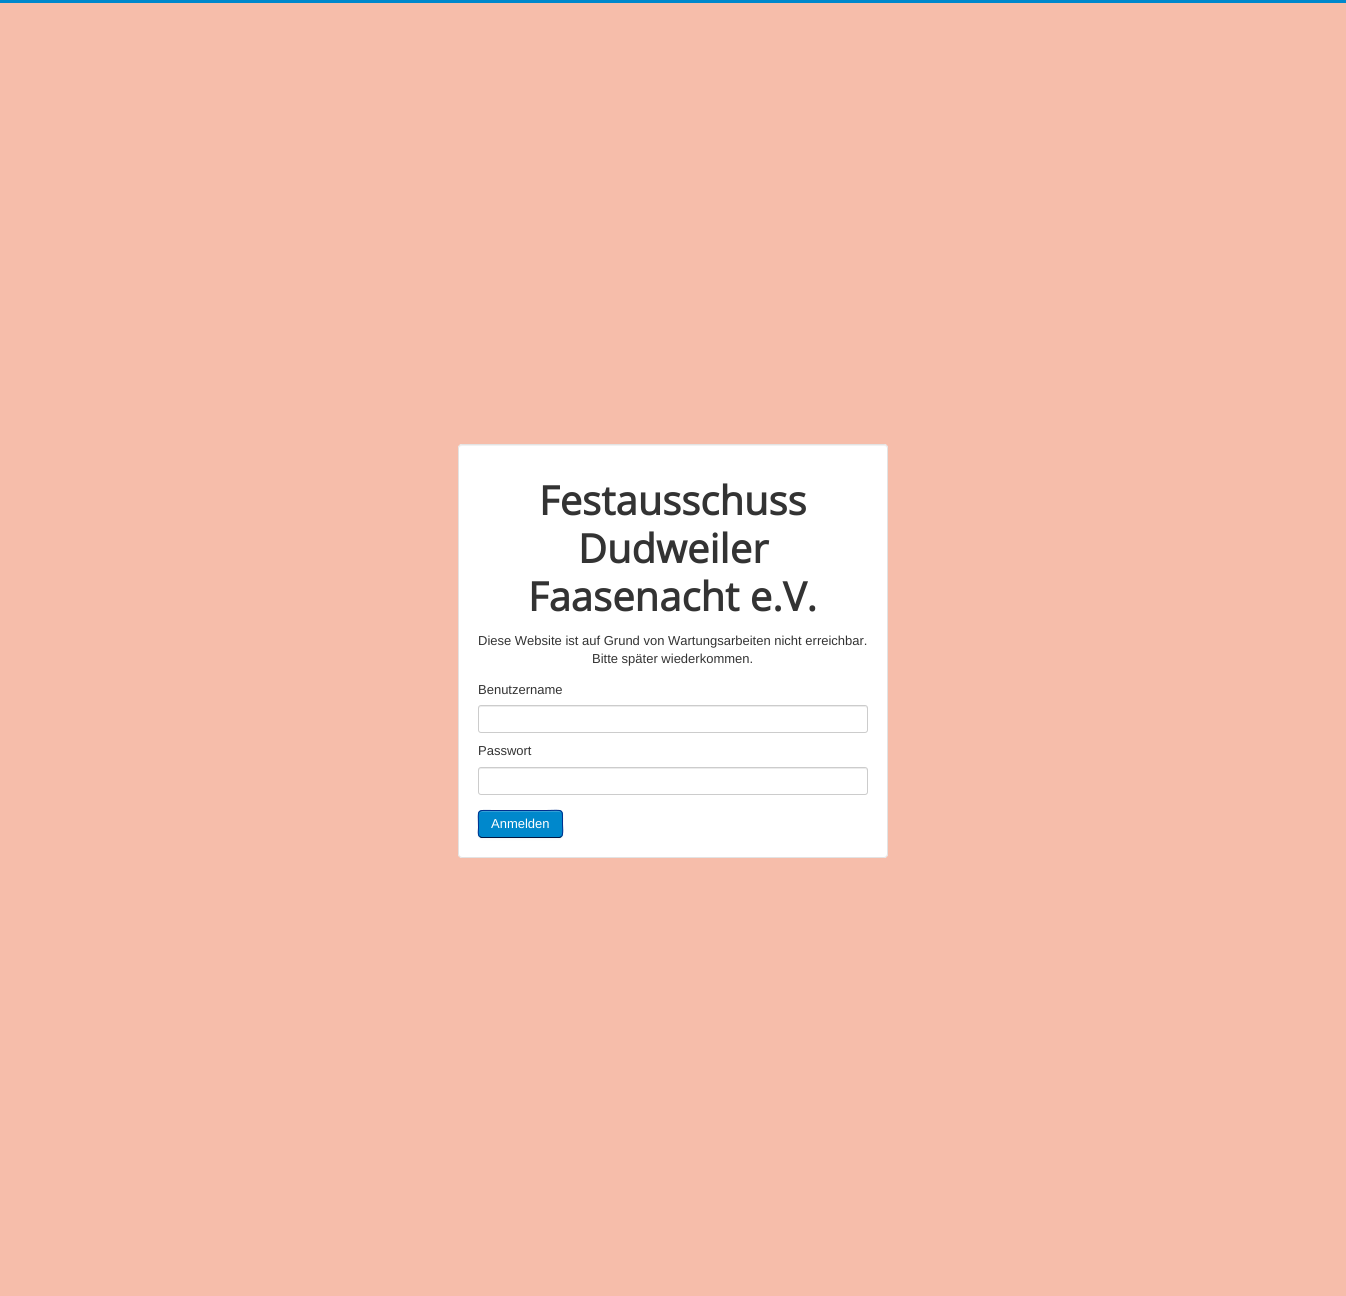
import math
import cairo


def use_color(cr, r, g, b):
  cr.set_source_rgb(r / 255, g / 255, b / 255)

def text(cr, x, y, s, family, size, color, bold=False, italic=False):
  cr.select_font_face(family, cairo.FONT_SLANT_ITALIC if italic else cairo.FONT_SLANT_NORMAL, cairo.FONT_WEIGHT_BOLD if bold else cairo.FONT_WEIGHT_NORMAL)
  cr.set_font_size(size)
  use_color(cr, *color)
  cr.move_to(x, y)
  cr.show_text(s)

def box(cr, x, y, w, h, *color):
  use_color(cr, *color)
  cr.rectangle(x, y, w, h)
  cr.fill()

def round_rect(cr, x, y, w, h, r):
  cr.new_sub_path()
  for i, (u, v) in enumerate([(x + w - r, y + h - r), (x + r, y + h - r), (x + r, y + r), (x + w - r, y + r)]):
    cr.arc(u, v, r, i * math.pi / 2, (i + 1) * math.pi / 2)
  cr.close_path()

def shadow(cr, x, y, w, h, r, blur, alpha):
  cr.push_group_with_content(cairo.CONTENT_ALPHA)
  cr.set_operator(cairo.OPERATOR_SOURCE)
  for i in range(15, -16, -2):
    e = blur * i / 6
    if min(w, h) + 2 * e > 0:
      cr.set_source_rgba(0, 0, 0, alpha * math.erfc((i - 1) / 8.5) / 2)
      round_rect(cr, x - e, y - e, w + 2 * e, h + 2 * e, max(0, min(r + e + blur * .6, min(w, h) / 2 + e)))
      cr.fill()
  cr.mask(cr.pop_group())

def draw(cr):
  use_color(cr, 246, 189, 170)
  cr.paint()
  box(cr, 0, 0, 1346, 3, 0, 136, 204)
  use_color(cr, 255, 255, 255)
  round_rect(cr, 458, 444, 430, 414, 4)
  cr.fill()
  use_color(cr, 242, 242, 242)
  cr.new_path()
  cr.move_to(462, 446)
  cr.line_to(884, 446)
  cr.curve_to(886, 446, 887, 447, 887, 449)
  cr.curve_to(887, 447, 886, 445, 884, 445)
  cr.line_to(462, 445)
  cr.curve_to(460, 445, 459, 447, 459, 449)
  cr.curve_to(459, 447, 460, 446, 462, 446)
  cr.close_path()
  cr.fill()
  round_rect(cr, 458.5, 444.5, 429, 413, 3.5)
  use_color(cr, 227, 227, 227)
  cr.set_line_width(1)
  cr.stroke()
  use_color(cr, 236, 236, 236)
  cr.new_path()
  cr.move_to(481, 707)
  cr.line_to(865, 707)
  cr.curve_to(866, 707, 867, 708, 867, 709)
  cr.line_to(867, 707)
  cr.line_to(865, 706)
  cr.line_to(481, 706)
  cr.curve_to(479, 706, 479, 708, 479, 709)
  cr.curve_to(479, 708, 480, 707, 481, 707)
  cr.close_path()
  cr.fill()
  round_rect(cr, 478.5, 705.5, 389, 27, 2.5)
  use_color(cr, 204, 204, 204)
  cr.stroke()
  use_color(cr, 236, 236, 236)
  cr.new_path()
  cr.move_to(481, 769)
  cr.line_to(865, 769)
  cr.curve_to(866, 769, 867, 770, 867, 771)
  cr.line_to(867, 769)
  cr.line_to(865, 768)
  cr.line_to(481, 768)
  cr.curve_to(479, 768, 479, 770, 479, 771)
  cr.curve_to(479, 770, 480, 769, 481, 769)
  cr.close_path()
  cr.fill()
  round_rect(cr, 478.5, 767.5, 389, 27, 2.5)
  use_color(cr, 204, 204, 204)
  cr.stroke()
  use_color(cr, 0, 0, 0)
  shadow(cr, 478, 811, 85, 28, 4, 1, 0.05)
  use_color(cr, 0, 136, 204)
  round_rect(cr, 478, 810, 85, 28, 4)
  cr.fill()
  use_color(cr, 51, 160, 214)
  cr.new_path()
  cr.move_to(482, 812)
  cr.line_to(559, 812)
  cr.curve_to(561, 812, 562, 813, 562, 815)
  cr.curve_to(562, 808, 550, 811, 546, 811)
  cr.line_to(495, 811)
  cr.curve_to(491, 811, 479, 808, 479, 815)
  cr.curve_to(479, 813, 480, 812, 482, 812)
  cr.close_path()
  cr.fill()
  cr.new_path()
  cr.move_to(561.5, 836.5)
  cr.line_to(559.5, 837.5)
  cr.line_to(481.5, 837.5)
  cr.line_to(479.5, 836.5)
  use_color(cr, 0, 22, 65)
  cr.stroke()
  cr.new_path()
  cr.move_to(479.5, 836.5)
  cr.curve_to(477.5, 834.5, 478.5, 830, 478.5, 827.5)
  cr.curve_to(478.5, 808, 475, 810.5, 495, 810.5)
  cr.line_to(546, 810.5)
  cr.curve_to(564, 810.5, 562.5, 807.5, 562.5, 824)
  cr.curve_to(562.5, 826.5, 563.5, 834, 561.5, 836.5)
  use_color(cr, 0, 47, 141)
  cr.stroke()
  text(cr, 539, 515, "Festausschuss", "Open Sans", 40, (51, 51, 51), bold=True)
  text(cr, 578, 563, "Dudweiler", "Open Sans", 40, (51, 51, 51), bold=True)
  text(cr, 528, 611, "Faasenacht e.V.", "Open Sans", 40, (51, 51, 51), bold=True)
  text(cr, 478, 645, "Diese Website ist auf Grund von Wartungsarbeiten nicht erreichbar.", "Liberation Sans", 13, (51, 51, 51))
  text(cr, 592, 663, "Bitte später wiederkommen.", "Liberation Sans", 13, (51, 51, 51))
  text(cr, 478, 694, "Benutzername", "Liberation Sans", 13, (51, 51, 51))
  text(cr, 478, 755, "Passwort", "Liberation Sans", 13, (51, 51, 51))
  text(cr, 491, 828, "Anmelden", "Liberation Sans", 13, (255, 255, 255))


surface = cairo.ImageSurface(cairo.FORMAT_RGB24, 1346, 1296)
cr = cairo.Context(surface)
options = cairo.FontOptions()
options.set_hint_metrics(cairo.HINT_METRICS_OFF)
options.set_hint_style(cairo.HINT_STYLE_NONE)
cr.set_font_options(options)
cr.set_miter_limit(4)
draw(cr)
surface.write_to_png("out.png")
